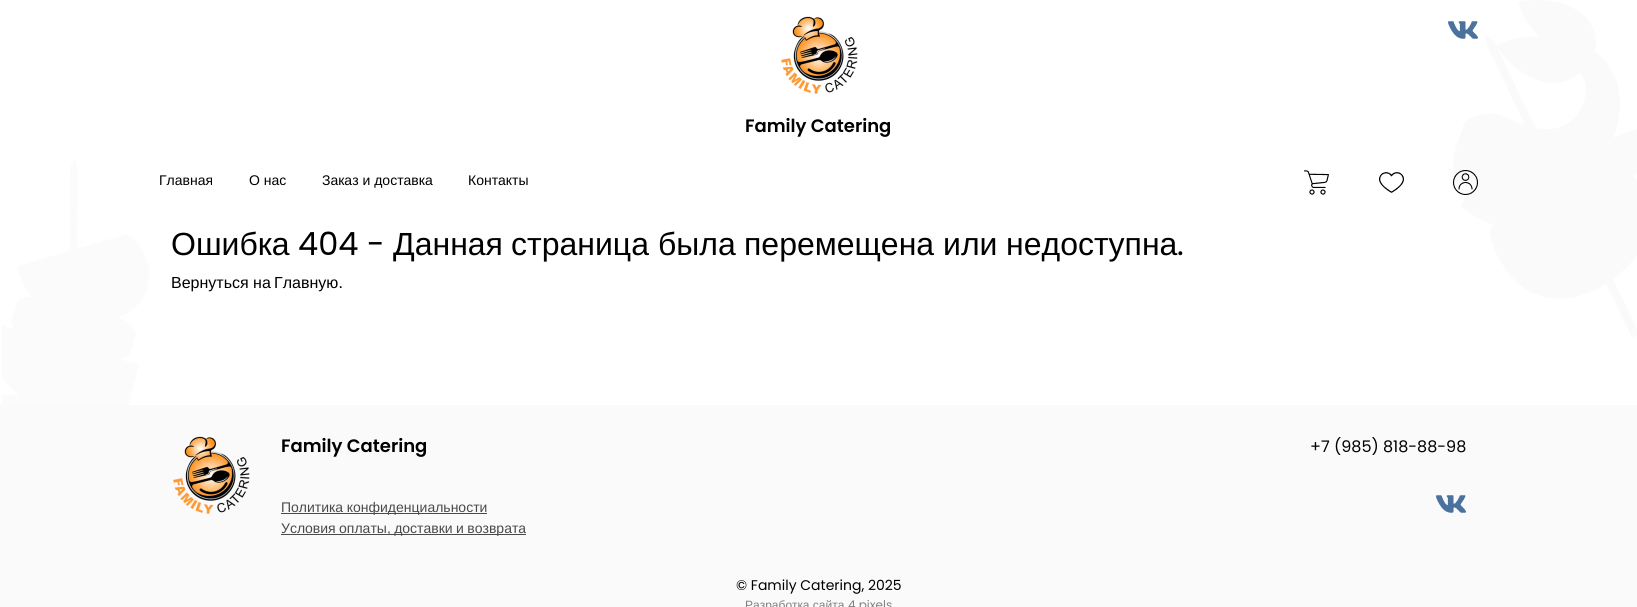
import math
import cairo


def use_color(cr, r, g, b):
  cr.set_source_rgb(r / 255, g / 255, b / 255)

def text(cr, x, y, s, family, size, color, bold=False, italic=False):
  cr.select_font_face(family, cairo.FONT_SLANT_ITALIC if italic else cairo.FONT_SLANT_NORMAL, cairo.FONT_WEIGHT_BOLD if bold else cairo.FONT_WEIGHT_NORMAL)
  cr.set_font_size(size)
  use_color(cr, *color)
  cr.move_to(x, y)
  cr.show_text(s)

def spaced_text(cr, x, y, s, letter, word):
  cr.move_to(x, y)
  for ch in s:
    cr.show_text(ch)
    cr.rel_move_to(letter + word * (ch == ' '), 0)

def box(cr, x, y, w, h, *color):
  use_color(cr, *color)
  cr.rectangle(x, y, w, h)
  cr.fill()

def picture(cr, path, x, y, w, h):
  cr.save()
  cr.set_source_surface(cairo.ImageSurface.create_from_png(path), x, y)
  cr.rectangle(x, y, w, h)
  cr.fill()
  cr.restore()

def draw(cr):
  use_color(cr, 255, 255, 255)
  cr.paint()
  picture(cr, "img_01.png", 2, 0, 1635, 405)
  picture(cr, "img_02.png", 1448, 21, 30, 18)
  picture(cr, "img_03.png", 781, 16, 77, 78)
  picture(cr, "img_04.png", 1304, 170, 25, 25)
  picture(cr, "img_05.png", 1379, 172, 25, 21)
  picture(cr, "img_06.png", 1453, 170, 25, 25)
  box(cr, 0, 405, 1637, 202, 250, 250, 250)
  picture(cr, "img_07.png", 173, 436, 77, 78)
  box(cr, 281, 513, 206, 1, 74, 74, 74)
  box(cr, 281, 534, 245, 1, 74, 74, 74)
  picture(cr, "img_08.png", 1436, 495, 30, 18)
  text(cr, 745, 132, "Family Catering", "Poppins SemiBold", 18, (0, 0, 0))
  text(cr, 159, 185, "Главная", "Liberation Sans", 14, (0, 0, 0))
  text(cr, 249, 185, "О нас", "Liberation Sans", 14, (0, 0, 0))
  text(cr, 322, 185, "Заказ и доставка", "Liberation Sans", 14, (0, 0, 0))
  text(cr, 468, 185, "Контакты", "Liberation Sans", 14, (0, 0, 0))
  text(cr, 171, 255, "Ошибка", "Liberation Sans", 32, (0, 0, 0))
  text(cr, 298, 255, "404 -", "Poppins", 32, (0, 0, 0))
  text(cr, 393, 255, "Данная", "Liberation Sans", 32, (0, 0, 0))
  text(cr, 511, 255, "страница", "Liberation Sans", 32, (0, 0, 0))
  text(cr, 658, 255, "была", "Liberation Sans", 32, (0, 0, 0))
  text(cr, 744, 255, "перемещена", "Liberation Sans", 32, (0, 0, 0))
  text(cr, 943, 255, "или", "Liberation Sans", 32, (0, 0, 0))
  text(cr, 1006, 255, "недоступна", "Liberation Sans", 32, (0, 0, 0))
  text(cr, 1177, 255, ".", "Poppins", 32, (0, 0, 0))
  text(cr, 171, 288, "Вернуться на", "Liberation Sans", 16, (0, 0, 0))
  text(cr, 274, 288, "Главную", "Liberation Sans", 16, (0, 0, 0))
  text(cr, 339, 288, ".", "Poppins", 16, (0, 0, 0))
  text(cr, 281, 452, "Family Catering", "Poppins SemiBold", 18, (0, 0, 0))
  text(cr, 281, 512, "Политика конфиденциальности", "Liberation Sans", 14, (74, 74, 74))
  spaced_text(cr, 281, 533, "Условия оплаты, доставки и возврата", 0, -0.5)
  text(cr, 1310, 452, "+7 (985) 818-88-98", "Poppins", 16, (0, 0, 0))
  text(cr, 736, 590, "© Family Catering, 2025", "Poppins", 14, (0, 0, 0))
  text(cr, 745, 609, "Разработка сайта", "Liberation Sans", 12, (128, 128, 128))
  text(cr, 848, 609, "4 pixels", "Poppins", 12, (128, 128, 128))


surface = cairo.ImageSurface(cairo.FORMAT_RGB24, 1637, 607)
cr = cairo.Context(surface)
options = cairo.FontOptions()
options.set_hint_metrics(cairo.HINT_METRICS_OFF)
options.set_hint_style(cairo.HINT_STYLE_NONE)
cr.set_font_options(options)
cr.set_miter_limit(4)
draw(cr)
surface.write_to_png("out.png")
